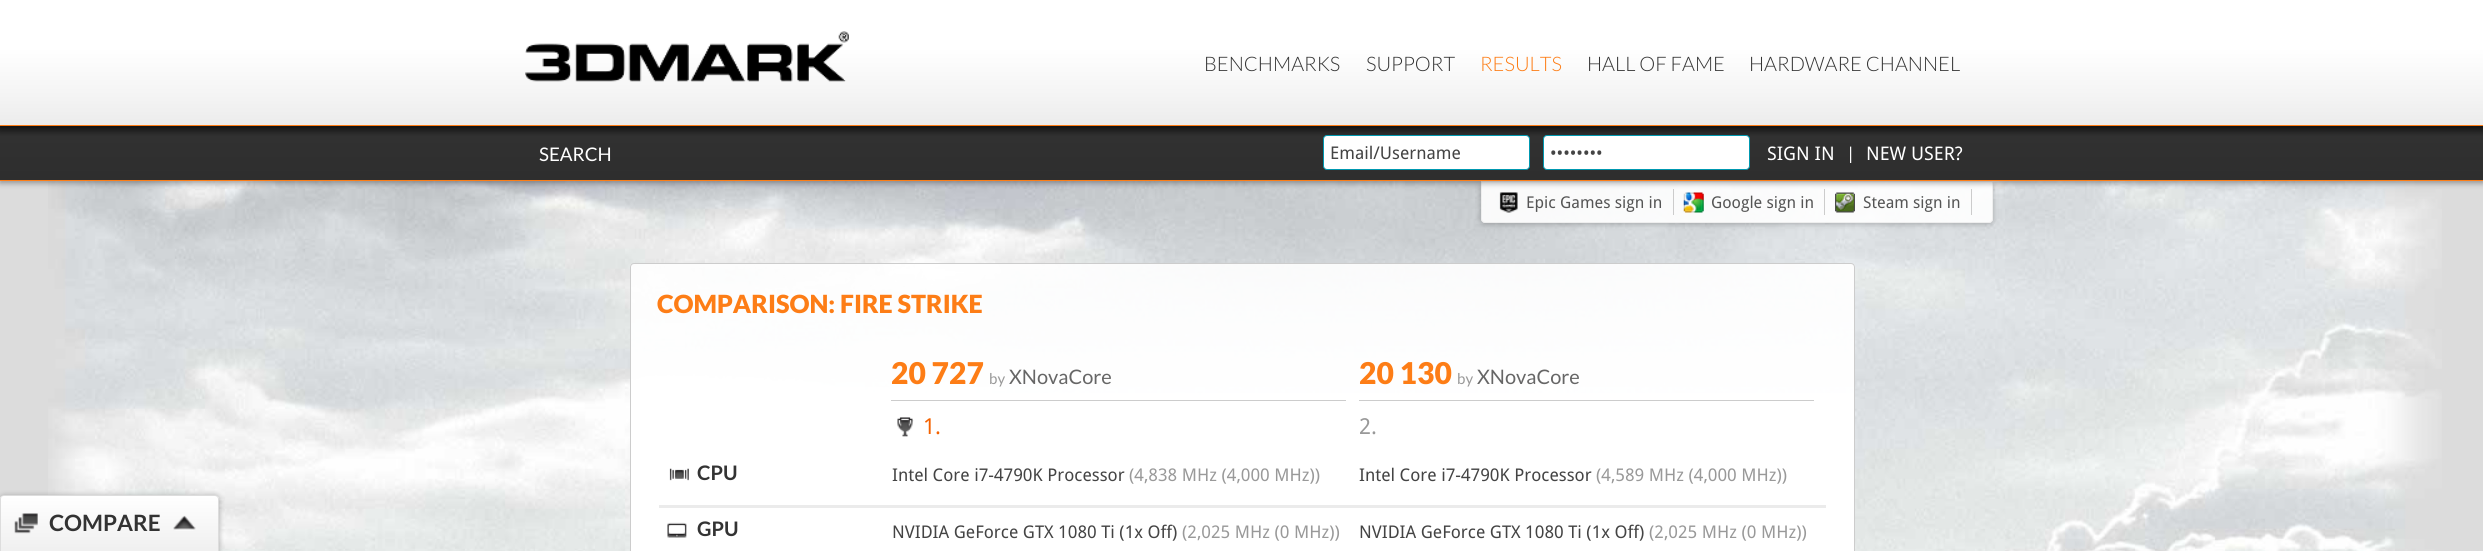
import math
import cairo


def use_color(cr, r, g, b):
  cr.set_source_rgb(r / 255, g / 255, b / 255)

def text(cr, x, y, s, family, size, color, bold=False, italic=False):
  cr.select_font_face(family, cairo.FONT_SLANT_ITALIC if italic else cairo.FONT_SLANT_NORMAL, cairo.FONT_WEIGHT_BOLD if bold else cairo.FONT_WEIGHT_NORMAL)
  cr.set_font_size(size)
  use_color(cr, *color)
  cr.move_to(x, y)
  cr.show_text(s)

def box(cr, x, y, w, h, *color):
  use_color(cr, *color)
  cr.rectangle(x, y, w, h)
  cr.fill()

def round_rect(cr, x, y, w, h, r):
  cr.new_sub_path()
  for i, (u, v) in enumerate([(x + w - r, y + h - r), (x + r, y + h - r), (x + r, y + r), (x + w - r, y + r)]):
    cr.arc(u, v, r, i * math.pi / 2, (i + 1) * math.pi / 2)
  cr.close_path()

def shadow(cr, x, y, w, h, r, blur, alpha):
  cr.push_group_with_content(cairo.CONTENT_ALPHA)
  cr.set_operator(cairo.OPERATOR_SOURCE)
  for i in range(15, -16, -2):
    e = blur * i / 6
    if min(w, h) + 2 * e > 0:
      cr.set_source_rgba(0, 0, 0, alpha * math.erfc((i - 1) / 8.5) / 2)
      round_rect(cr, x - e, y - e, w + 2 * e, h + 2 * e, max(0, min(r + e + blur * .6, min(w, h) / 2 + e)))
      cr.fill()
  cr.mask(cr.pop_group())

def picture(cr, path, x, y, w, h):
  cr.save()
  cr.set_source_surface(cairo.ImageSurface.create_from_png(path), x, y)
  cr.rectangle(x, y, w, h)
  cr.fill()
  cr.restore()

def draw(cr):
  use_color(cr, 220, 220, 220)
  cr.paint()
  picture(cr, "img_01.png", 48, 181, 2394, 370)
  cr.save()
  cr.set_fill_rule(cairo.FILL_RULE_EVEN_ODD)
  cr.new_path()
  cr.move_to(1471, 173)
  cr.line_to(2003, 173)
  cr.line_to(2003, 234)
  cr.line_to(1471, 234)
  cr.close_path()
  cr.move_to(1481, 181)
  cr.line_to(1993, 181)
  cr.line_to(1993, 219)
  cr.curve_to(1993, 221, 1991, 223, 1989, 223)
  cr.line_to(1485, 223)
  cr.curve_to(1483, 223, 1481, 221, 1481, 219)
  cr.close_path()
  cr.clip()
  use_color(cr, 0, 0, 0)
  shadow(cr, 1481, 183, 512, 41, 4, 3, 0.25)
  cr.restore()
  cr.set_source_rgba(1, 1, 1, 0.9)
  cr.new_path()
  cr.move_to(1481.5, 181.5)
  cr.line_to(1992.5, 181.5)
  cr.line_to(1992.5, 219)
  cr.curve_to(1992.5, 221, 1991, 222.5, 1989, 222.5)
  cr.line_to(1485, 222.5)
  cr.curve_to(1483, 222.5, 1481.5, 221, 1481.5, 219)
  cr.close_path()
  cr.fill_preserve()
  use_color(cr, 238, 238, 238)
  cr.set_line_width(1)
  cr.stroke()
  picture(cr, "img_03.png", 1499, 192, 19, 21)
  box(cr, 1673, 189, 1, 26, 204, 204, 204)
  picture(cr, "img_04.png", 1683, 192, 21, 21)
  box(cr, 1824, 189, 1, 26, 204, 204, 204)
  picture(cr, "img_05.png", 1835, 192, 20, 21)
  box(cr, 1971, 189, 1, 26, 204, 204, 204)
  use_color(cr, 0, 0, 0)
  shadow(cr, 0, 128, 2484, 55, 0, 3, 0.35)
  gradient = cairo.LinearGradient(1242, 126, 1242, 180)
  gradient.add_color_stop_rgba(0, 0.102, 0.102, 0.102, 1)
  gradient.add_color_stop_rgba(0.19, 0.192, 0.192, 0.192, 1)
  gradient.add_color_stop_rgba(1, 0.18, 0.18, 0.18, 1)
  cr.set_source(gradient)
  cr.rectangle(0, 126, 2483, 54)
  cr.fill()
  use_color(cr, 255, 255, 255)
  round_rect(cr, 1323.5, 135.5, 206, 34, 3.5)
  cr.fill_preserve()
  use_color(cr, 0, 152, 176)
  cr.stroke()
  use_color(cr, 255, 255, 255)
  round_rect(cr, 1543.5, 135.5, 206, 34, 3.5)
  cr.fill_preserve()
  use_color(cr, 0, 152, 176)
  cr.stroke()
  use_color(cr, 0, 0, 0)
  shadow(cr, 0, 1, 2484, 127, 0, 3, 0.35)
  gradient = cairo.LinearGradient(1242, 0, 1242, 125)
  gradient.add_color_stop_rgba(0.38, 1, 1, 1, 1)
  gradient.add_color_stop_rgba(0.73, 0.961, 0.961, 0.961, 1)
  gradient.add_color_stop_rgba(1, 0.925, 0.925, 0.925, 1)
  cr.set_source(gradient)
  cr.rectangle(0, 0, 2483, 125)
  cr.fill()
  box(cr, 0, 125, 2483, 1, 253, 125, 22)
  picture(cr, "img_02.png", 525, 31, 324, 51)
  box(cr, 0, 180, 2483, 1, 253, 125, 22)
  use_color(cr, 0, 0, 0)
  shadow(cr, 0, 496, 219, 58, 4, 3, 0.3)
  cr.save()
  cr.new_path()
  cr.move_to(4, 495)
  cr.line_to(215, 495)
  cr.curve_to(217, 495, 219, 497, 219, 499)
  cr.line_to(219, 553)
  cr.line_to(0, 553)
  cr.line_to(0, 499)
  cr.curve_to(0, 497, 2, 495, 4, 495)
  cr.close_path()
  cr.clip()
  gradient = cairo.LinearGradient(109, 496, 109, 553)
  gradient.add_color_stop_rgba(0, 1, 1, 1, 1)
  gradient.add_color_stop_rgba(1, 0.937, 0.937, 0.937, 1)
  cr.set_source(gradient)
  cr.rectangle(0, 496, 219, 55)
  cr.fill()
  cr.restore()
  use_color(cr, 221, 221, 221)
  cr.set_fill_rule(cairo.FILL_RULE_EVEN_ODD)
  cr.new_path()
  cr.move_to(4, 495)
  cr.line_to(215, 495)
  cr.curve_to(217, 495, 219, 497, 219, 499)
  cr.line_to(219, 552)
  cr.line_to(0, 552)
  cr.line_to(0, 499)
  cr.curve_to(0, 497, 2, 495, 4, 495)
  cr.close_path()
  cr.move_to(4, 496)
  cr.line_to(215, 496)
  cr.curve_to(216, 496, 218, 497, 218, 499)
  cr.line_to(218, 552)
  cr.line_to(1, 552)
  cr.line_to(1, 499)
  cr.curve_to(1, 497, 2, 496, 4, 496)
  cr.close_path()
  cr.fill()
  picture(cr, "img_06.png", 14, 513, 24, 21)
  picture(cr, "img_07.png", 173, 515, 23, 16)
  round_rect(cr, 630.5, 263.5, 1224, 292, 3.5)
  use_color(cr, 204, 204, 204)
  cr.stroke()
  box(cr, 891, 400, 455, 1, 204, 204, 204)
  picture(cr, "img_08.png", 897, 417, 17, 20)
  box(cr, 1359, 400, 455, 1, 204, 204, 204)
  box(cr, 659, 505, 1167, 3, 235, 235, 235)
  picture(cr, "img_09.png", 669, 468, 20, 13)
  picture(cr, "img_10.png", 667, 522, 20, 16)
  text(cr, 1204, 71, "BENCHMARKS", "Lato Light", 20, (51, 51, 51))
  text(cr, 1366, 71, "SUPPORT", "Lato Light", 20, (51, 51, 51))
  text(cr, 1480, 71, "RESULTS", "Lato Light", 20, (253, 125, 22))
  text(cr, 1587, 71, "HALL OF FAME", "Lato Light", 20, (51, 51, 51))
  text(cr, 1749, 71, "HARDWARE CHANNEL", "Lato Light", 20, (51, 51, 51))
  text(cr, 539, 161, "SEARCH", "Lato", 18.75, (255, 255, 255))
  text(cr, 1330, 159, "Email/Username", "Droid Sans", 17.5, (68, 68, 68))
  text(cr, 1550, 159, "••••••••", "Droid Sans", 17.5, (68, 68, 68))
  text(cr, 1767, 160, "SIGN IN", "Droid Sans", 18.75, (255, 255, 255))
  text(cr, 1848, 160, "|", "Lato", 17.5, (255, 255, 255))
  text(cr, 1866, 160, "NEW USER?", "Droid Sans", 18.75, (255, 255, 255))
  text(cr, 1526, 208, "Epic Games sign in", "Droid Sans", 16.25, (85, 85, 85))
  text(cr, 1711, 208, "Google sign in", "Droid Sans", 16.25, (85, 85, 85))
  text(cr, 1863, 208, "Steam sign in", "Droid Sans", 16.25, (85, 85, 85))
  text(cr, 49, 531, "COMPARE", "Lato", 22.5, (51, 51, 51), bold=True)
  text(cr, 657, 313, "COMPARISON: FIRE STRIKE", "Lato Black", 25, (253, 125, 22))
  text(cr, 891, 384, "20 727", "Lato Black", 30, (253, 125, 22))
  text(cr, 989, 384, "by", "Lato", 15, (153, 153, 153))
  text(cr, 1009, 384, "XNovaCore", "Lato", 20, (102, 102, 102))
  text(cr, 923, 434, "1.", "Droid Sans", 22, (244, 98, 0))
  text(cr, 1359, 384, "20 130", "Lato Black", 30, (253, 125, 22))
  text(cr, 1457, 384, "by", "Lato", 15, (153, 153, 153))
  text(cr, 1477, 384, "XNovaCore", "Lato", 20, (102, 102, 102))
  text(cr, 1359, 434, "2.", "Droid Sans", 22, (153, 153, 153))
  text(cr, 697, 480, "CPU", "Lato", 20, (51, 51, 51), bold=True)
  text(cr, 892, 481, "Intel Core i7-4790K Processor", "Droid Sans", 17.5, (68, 68, 68))
  text(cr, 1129, 481, "(4,838 MHz (4,000 MHz))", "Droid Sans", 17.5, (153, 153, 153))
  text(cr, 1359, 481, "Intel Core i7-4790K Processor", "Droid Sans", 17.5, (68, 68, 68))
  text(cr, 1596, 481, "(4,589 MHz (4,000 MHz))", "Droid Sans", 17.5, (153, 153, 153))
  text(cr, 697, 536, "GPU", "Lato", 20, (51, 51, 51), bold=True)
  text(cr, 892, 538, "NVIDIA GeForce GTX 1080 Ti (1x Off)", "Droid Sans", 17.5, (68, 68, 68))
  text(cr, 1182, 538, "(2,025 MHz (0 MHz))", "Droid Sans", 17.5, (153, 153, 153))
  text(cr, 1359, 538, "NVIDIA GeForce GTX 1080 Ti (1x Off)", "Droid Sans", 17.5, (68, 68, 68))
  text(cr, 1649, 538, "(2,025 MHz (0 MHz))", "Droid Sans", 17.5, (153, 153, 153))


surface = cairo.ImageSurface(cairo.FORMAT_RGB24, 2483, 551)
cr = cairo.Context(surface)
options = cairo.FontOptions()
options.set_hint_metrics(cairo.HINT_METRICS_OFF)
options.set_hint_style(cairo.HINT_STYLE_NONE)
cr.set_font_options(options)
cr.set_miter_limit(4)
draw(cr)
surface.write_to_png("out.png")
